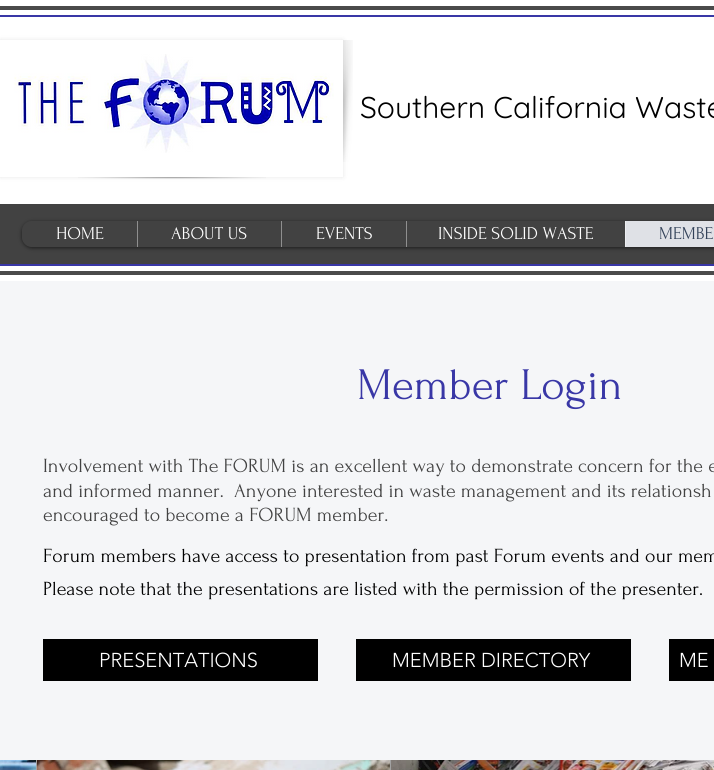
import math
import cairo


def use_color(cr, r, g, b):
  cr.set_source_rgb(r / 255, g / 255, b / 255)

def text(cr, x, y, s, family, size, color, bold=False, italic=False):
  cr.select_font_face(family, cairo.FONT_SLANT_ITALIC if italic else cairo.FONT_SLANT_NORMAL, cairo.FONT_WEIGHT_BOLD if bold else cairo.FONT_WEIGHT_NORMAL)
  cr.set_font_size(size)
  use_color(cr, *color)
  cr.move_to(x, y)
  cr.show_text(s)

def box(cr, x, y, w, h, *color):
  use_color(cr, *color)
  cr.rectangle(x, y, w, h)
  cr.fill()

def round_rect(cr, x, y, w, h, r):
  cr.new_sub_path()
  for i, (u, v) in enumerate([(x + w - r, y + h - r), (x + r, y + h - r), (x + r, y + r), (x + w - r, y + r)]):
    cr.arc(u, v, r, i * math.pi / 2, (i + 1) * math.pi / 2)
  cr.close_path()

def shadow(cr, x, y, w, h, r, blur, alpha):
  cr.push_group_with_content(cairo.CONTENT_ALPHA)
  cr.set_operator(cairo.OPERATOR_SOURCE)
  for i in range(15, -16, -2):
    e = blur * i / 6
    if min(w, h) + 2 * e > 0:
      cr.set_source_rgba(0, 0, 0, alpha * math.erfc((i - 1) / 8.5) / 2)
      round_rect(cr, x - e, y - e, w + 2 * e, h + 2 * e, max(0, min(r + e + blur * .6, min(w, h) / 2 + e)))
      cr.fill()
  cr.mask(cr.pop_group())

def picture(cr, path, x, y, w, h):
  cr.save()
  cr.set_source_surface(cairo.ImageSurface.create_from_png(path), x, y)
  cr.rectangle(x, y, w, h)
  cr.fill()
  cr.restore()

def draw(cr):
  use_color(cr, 245, 246, 248)
  cr.paint()
  box(cr, 0, 0, 714, 281, 255, 255, 255)
  box(cr, 0, 6, 714, 4, 75, 75, 75)
  box(cr, 0, 271, 714, 4, 75, 75, 75)
  box(cr, 0, 15, 714, 2, 57, 55, 166)
  box(cr, 0, 264, 714, 2, 57, 55, 166)
  cr.save()
  cr.set_fill_rule(cairo.FILL_RULE_EVEN_ODD)
  cr.new_path()
  cr.move_to(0, 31)
  cr.line_to(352, 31)
  cr.line_to(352, 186)
  cr.line_to(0, 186)
  cr.close_path()
  cr.move_to(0, 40)
  cr.line_to(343, 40)
  cr.line_to(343, 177)
  cr.line_to(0, 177)
  cr.close_path()
  cr.clip()
  use_color(cr, 0, 0, 0)
  shadow(cr, 0, 40, 343, 137, 0, 2.5, 0.1)
  cr.restore()
  picture(cr, "img_01.png", 14, 54, 320, 99)
  picture(cr, "img_02.png", 78, 177, 188, 2)
  picture(cr, "img_03.png", 343, 40, 10, 122)
  box(cr, 0, 204, 714, 60, 66, 66, 66)
  cr.save()
  cr.set_fill_rule(cairo.FILL_RULE_EVEN_ODD)
  cr.new_path()
  cr.move_to(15, 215)
  cr.line_to(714, 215)
  cr.line_to(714, 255)
  cr.line_to(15, 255)
  cr.close_path()
  cr.move_to(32, 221)
  cr.line_to(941, 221)
  cr.curve_to(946.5, 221, 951, 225.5, 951, 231)
  cr.line_to(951, 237)
  cr.curve_to(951, 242.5, 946.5, 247, 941, 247)
  cr.line_to(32, 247)
  cr.curve_to(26.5, 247, 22, 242.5, 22, 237)
  cr.line_to(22, 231)
  cr.curve_to(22, 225.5, 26.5, 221, 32, 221)
  cr.close_path()
  cr.clip()
  use_color(cr, 0, 0, 0)
  shadow(cr, 22, 222, 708, 26, 10, 2, 0.6)
  cr.restore()
  box(cr, 137, 221, 1, 26, 143, 143, 143)
  box(cr, 281, 221, 1, 26, 143, 143, 143)
  box(cr, 406, 221, 1, 26, 143, 143, 143)
  box(cr, 626, 221, 88, 26, 223, 225, 230)
  box(cr, 625, 221, 1, 26, 236, 237, 240)
  box(cr, 43, 639, 275, 42, 0, 0, 0)
  box(cr, 356, 639, 275, 42, 0, 0, 0)
  box(cr, 669, 639, 45, 42, 0, 0, 0)
  picture(cr, "img_04.png", 0, 760, 36, 10)
  box(cr, 36, 760, 1, 10, 162, 162, 162)
  picture(cr, "img_05.png", 37, 760, 353, 10)
  box(cr, 390, 760, 1, 10, 162, 162, 162)
  picture(cr, "img_06.png", 391, 760, 323, 10)
  text(cr, 360, 118, "Southern California Waste", "Quicksand", 30, (0, 0, 0))
  text(cr, 56, 239, "HOME", "Forum", 18, (255, 255, 255))
  text(cr, 171, 239, "ABOUT US", "Forum", 18, (255, 255, 255))
  text(cr, 316, 239, "EVENTS", "Forum", 18, (255, 255, 255))
  text(cr, 438, 239, "INSIDE SOLID WASTE", "Forum", 18, (255, 255, 255))
  text(cr, 659, 239, "MEMBE", "Forum", 18, (50, 65, 88))
  text(cr, 357, 399, "Member Login", "Forum", 45, (57, 55, 166))
  text(cr, 43, 472, "Involvement with The FORUM is an excellent way to demonstrate concern for the e", "Forum", 20, (66, 66, 66))
  text(cr, 43, 497, "and informed manner.", "Forum", 20, (66, 66, 66))
  text(cr, 234, 497, "Anyone interested in waste management and its relationsh", "Forum", 20, (66, 66, 66))
  text(cr, 43, 521, "encouraged to become a FORUM member.", "Forum", 20, (66, 66, 66))
  text(cr, 43, 562, "Forum members have access to presentation from past Forum events and our mem", "Forum", 20, (0, 0, 0))
  text(cr, 43, 595, "Please note that the presentations are listed with the permission of the presenter.", "Forum", 20, (0, 0, 0))
  text(cr, 99, 667, "PRESENTATIONS", "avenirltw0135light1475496 Light", 20, (255, 255, 255))
  text(cr, 392, 667, "MEMBER DIRECTORY", "avenirltw0135light1475496 Light", 20, (255, 255, 255))
  text(cr, 679, 667, "ME", "avenirltw0135light1475496 Light", 20, (255, 255, 255))


surface = cairo.ImageSurface(cairo.FORMAT_RGB24, 714, 770)
cr = cairo.Context(surface)
options = cairo.FontOptions()
options.set_hint_metrics(cairo.HINT_METRICS_OFF)
options.set_hint_style(cairo.HINT_STYLE_NONE)
cr.set_font_options(options)
cr.set_miter_limit(4)
draw(cr)
surface.write_to_png("out.png")
